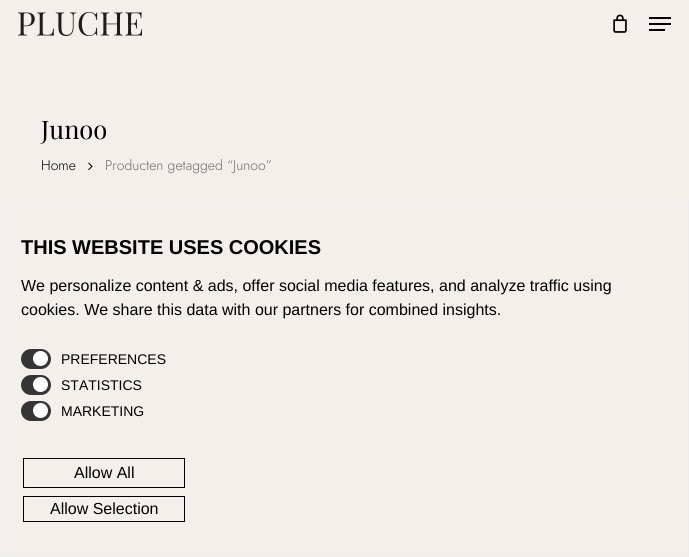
import math
import cairo


def use_color(cr, r, g, b):
  cr.set_source_rgb(r / 255, g / 255, b / 255)

def text(cr, x, y, s, family, size, color, bold=False, italic=False):
  cr.select_font_face(family, cairo.FONT_SLANT_ITALIC if italic else cairo.FONT_SLANT_NORMAL, cairo.FONT_WEIGHT_BOLD if bold else cairo.FONT_WEIGHT_NORMAL)
  cr.set_font_size(size)
  use_color(cr, *color)
  cr.move_to(x, y)
  cr.show_text(s)

def box(cr, x, y, w, h, *color):
  use_color(cr, *color)
  cr.rectangle(x, y, w, h)
  cr.fill()

def round_rect(cr, x, y, w, h, r):
  cr.new_sub_path()
  for i, (u, v) in enumerate([(x + w - r, y + h - r), (x + r, y + h - r), (x + r, y + r), (x + w - r, y + r)]):
    cr.arc(u, v, r, i * math.pi / 2, (i + 1) * math.pi / 2)
  cr.close_path()

def picture(cr, path, x, y, w, h):
  cr.save()
  cr.set_source_surface(cairo.ImageSurface.create_from_png(path), x, y)
  cr.rectangle(x, y, w, h)
  cr.fill()
  cr.restore()

def draw(cr):
  use_color(cr, 243, 239, 235)
  cr.paint()
  picture(cr, "img_01.png", 18, 12, 124, 24)
  picture(cr, "img_02.png", 613, 14, 14, 19)
  box(cr, 649, 17, 22, 2, 0, 0, 0)
  box(cr, 649, 29, 16, 2, 0, 0, 0)
  box(cr, 649, 23, 22, 2, 0, 0, 0)
  picture(cr, "img_03.png", 88, 162, 5, 9)
  cr.rectangle(0.5, 200.5, 688, 356)
  use_color(cr, 237, 237, 237)
  cr.set_line_width(1)
  cr.stroke()
  use_color(cr, 53, 53, 53)
  round_rect(cr, 21, 349, 30, 20, 10)
  cr.fill()
  use_color(cr, 255, 255, 255)
  cr.arc(40.5, 358.5, 7.5, 0, 2 * math.pi)
  cr.fill()
  use_color(cr, 53, 53, 53)
  round_rect(cr, 21, 375, 30, 20, 10)
  cr.fill()
  use_color(cr, 255, 255, 255)
  cr.arc(40.5, 384.5, 7.5, 0, 2 * math.pi)
  cr.fill()
  use_color(cr, 53, 53, 53)
  round_rect(cr, 21, 401, 30, 20, 10)
  cr.fill()
  use_color(cr, 255, 255, 255)
  cr.arc(40.5, 410.5, 7.5, 0, 2 * math.pi)
  cr.fill()
  cr.rectangle(23.5, 458.5, 161, 29)
  use_color(cr, 0, 0, 0)
  cr.stroke()
  cr.rectangle(23.5, 496.5, 161, 25)
  cr.stroke()
  text(cr, 41, 139, "Junoo", "Playfair Display", 25.5, (0, 0, 0))
  text(cr, 41, 170, "Home", "Jost Light", 14, (0, 0, 0))
  text(cr, 105, 170, "Producten getagged “Junoo”", "Jost Light", 14, (109, 108, 106))
  text(cr, 21, 254, "THIS WEBSITE USES COOKIES", "Liberation Sans", 20, (0, 0, 0), bold=True)
  text(cr, 21, 291, "We personalize content & ads, offer social media features, and analyze traffic using", "Liberation Sans", 16, (0, 0, 0))
  text(cr, 21, 315, "cookies. We share this data with our partners for combined insights.", "Liberation Sans", 16, (0, 0, 0))
  text(cr, 61, 364, "PREFERENCES", "Liberation Sans", 14, (0, 0, 0))
  text(cr, 61, 390, "STATISTICS", "Liberation Sans", 14, (0, 0, 0))
  text(cr, 61, 416, "MARKETING", "Liberation Sans", 14, (0, 0, 0))
  text(cr, 74, 478, "Allow All", "Liberation Sans", 16, (0, 0, 0))
  text(cr, 50, 514, "Allow Selection", "Liberation Sans", 16, (0, 0, 0))


surface = cairo.ImageSurface(cairo.FORMAT_RGB24, 689, 557)
cr = cairo.Context(surface)
options = cairo.FontOptions()
options.set_hint_metrics(cairo.HINT_METRICS_OFF)
options.set_hint_style(cairo.HINT_STYLE_NONE)
cr.set_font_options(options)
cr.set_miter_limit(4)
draw(cr)
surface.write_to_png("out.png")
